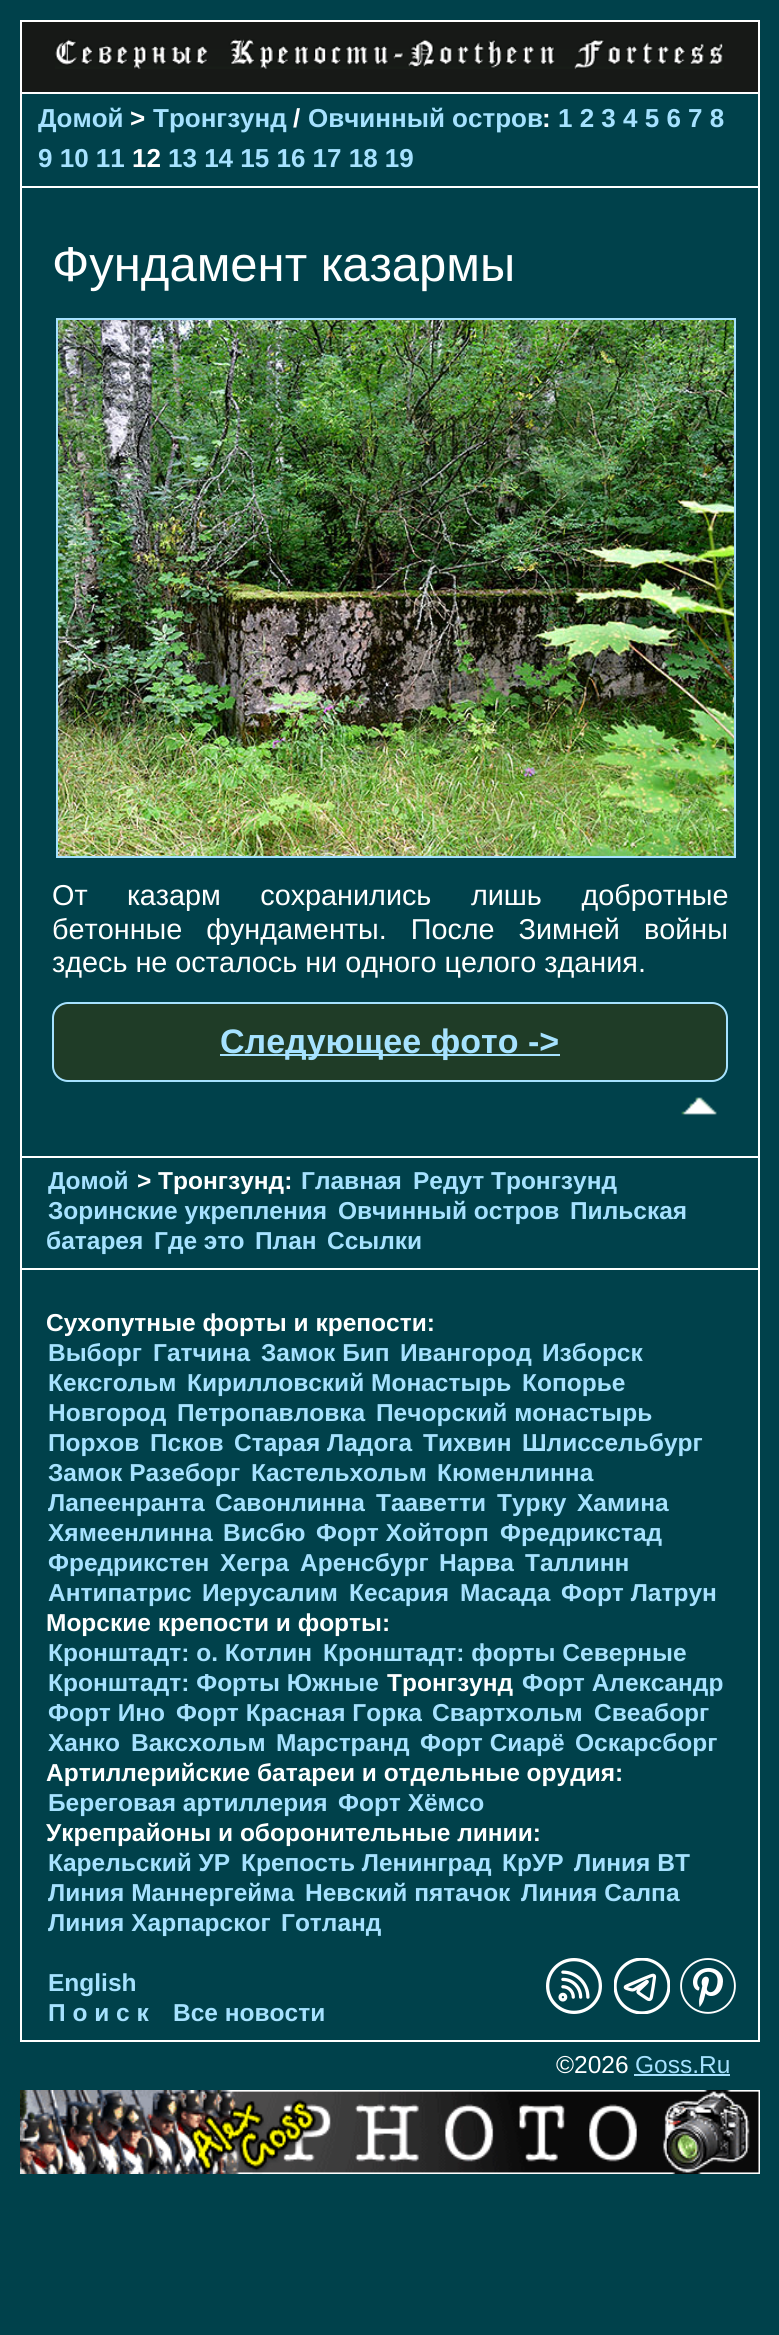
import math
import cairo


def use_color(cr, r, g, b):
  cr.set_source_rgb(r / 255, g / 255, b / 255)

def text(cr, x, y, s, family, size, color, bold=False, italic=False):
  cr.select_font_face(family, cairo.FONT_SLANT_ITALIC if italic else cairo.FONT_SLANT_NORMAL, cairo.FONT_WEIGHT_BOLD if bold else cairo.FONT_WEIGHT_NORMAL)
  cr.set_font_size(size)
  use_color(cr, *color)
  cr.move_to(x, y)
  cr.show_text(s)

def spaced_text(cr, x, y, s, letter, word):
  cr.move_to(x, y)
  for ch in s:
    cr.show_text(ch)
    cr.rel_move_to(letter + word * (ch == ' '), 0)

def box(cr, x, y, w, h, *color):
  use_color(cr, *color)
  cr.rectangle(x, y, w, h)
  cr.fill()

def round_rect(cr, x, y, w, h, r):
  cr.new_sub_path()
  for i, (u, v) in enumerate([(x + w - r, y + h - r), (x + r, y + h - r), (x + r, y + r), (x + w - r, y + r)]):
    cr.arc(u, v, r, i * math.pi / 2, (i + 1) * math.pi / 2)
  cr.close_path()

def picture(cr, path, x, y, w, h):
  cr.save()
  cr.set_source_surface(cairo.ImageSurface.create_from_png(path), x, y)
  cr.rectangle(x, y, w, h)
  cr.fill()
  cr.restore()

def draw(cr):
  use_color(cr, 0, 65, 75)
  cr.paint()
  box(cr, 22, 22, 736, 70, 23, 25, 23)
  box(cr, 20, 20, 740, 2, 255, 255, 255)
  box(cr, 758, 20, 2, 72, 255, 255, 255)
  box(cr, 20, 20, 2, 72, 255, 255, 255)
  picture(cr, "img_01.png", 55, 39, 669, 30)
  box(cr, 20, 92, 740, 2, 255, 255, 255)
  box(cr, 758, 92, 2, 94, 255, 255, 255)
  box(cr, 20, 92, 2, 94, 255, 255, 255)
  cr.rectangle(21, 187, 738, 970)
  cr.stroke()
  cr.rectangle(57, 319, 678, 538)
  use_color(cr, 166, 226, 255)
  cr.stroke()
  picture(cr, "img_02.png", 58, 320, 676, 536)
  use_color(cr, 31, 60, 39)
  round_rect(cr, 53, 1003, 674, 78, 15)
  cr.fill_preserve()
  use_color(cr, 166, 226, 255)
  cr.stroke()
  box(cr, 220, 1054, 340, 2, 166, 226, 255)
  picture(cr, "img_03.png", 681, 1097, 36, 18)
  box(cr, 758, 1158, 2, 884, 255, 255, 255)
  box(cr, 20, 1268, 740, 2, 255, 255, 255)
  box(cr, 20, 1158, 2, 112, 255, 255, 255)
  box(cr, 20, 2040, 740, 2, 255, 255, 255)
  box(cr, 20, 1270, 2, 772, 255, 255, 255)
  picture(cr, "img_04.png", 546, 1958, 56, 56)
  picture(cr, "img_05.png", 614, 1958, 56, 56)
  picture(cr, "img_06.png", 680, 1958, 56, 56)
  box(cr, 634, 2074, 96, 2, 166, 226, 255)
  picture(cr, "img_07.png", 20, 2090, 740, 84)
  text(cr, 38, 127, "Домой", "Liberation Sans", 26, (166, 226, 255), bold=True)
  text(cr, 130, 127, ">", "Liberation Sans", 26, (255, 255, 255), bold=True)
  text(cr, 153, 127, "Тронгзунд", "Liberation Sans", 26, (166, 226, 255), bold=True)
  text(cr, 293, 127, "/", "Liberation Sans", 26, (255, 255, 255), bold=True)
  text(cr, 308, 127, "Овчинный остров", "Liberation Sans", 26, (166, 226, 255), bold=True)
  text(cr, 542, 127, ":", "Liberation Sans", 26, (255, 255, 255), bold=True)
  text(cr, 558, 127, "1 2 3 4 5 6 7 8", "Liberation Sans", 26, (166, 226, 255), bold=True)
  text(cr, 38, 167, "9 10 11", "Liberation Sans", 26, (166, 226, 255), bold=True)
  text(cr, 132, 167, "12", "Liberation Sans", 26, (255, 255, 255), bold=True)
  text(cr, 168, 167, "13 14 15 16 17 18 19", "Liberation Sans", 26, (166, 226, 255), bold=True)
  text(cr, 52, 281, "Фундамент казармы", "Liberation Sans", 49, (255, 255, 255))
  cr.set_font_size(28.8)
  spaced_text(cr, 52, 905, "От казарм сохранились лишь добротные", 0, 31.5)
  spaced_text(cr, 52, 939, "бетонные фундаменты. После Зимней войны", 0, 16)
  text(cr, 52, 972, "здесь не осталось ни одного целого здания.", "Liberation Sans", 28.8, (255, 255, 255))
  text(cr, 220, 1053, "Следующее фото ->", "Liberation Sans", 34, (166, 226, 255), bold=True)
  text(cr, 48, 1189, "Домой", "Liberation Sans", 24.5, (166, 226, 255), bold=True)
  text(cr, 137, 1189, "> Тронгзунд:", "Liberation Sans", 24.5, (255, 255, 255), bold=True)
  text(cr, 301, 1189, "Главная", "Liberation Sans", 24.5, (166, 226, 255), bold=True)
  text(cr, 413, 1189, "Редут Тронгзунд", "Liberation Sans", 24.5, (166, 226, 255), bold=True)
  text(cr, 48, 1219, "Зоринские укрепления", "Liberation Sans", 24.5, (166, 226, 255), bold=True)
  text(cr, 338, 1219, "Овчинный остров", "Liberation Sans", 24.5, (166, 226, 255), bold=True)
  text(cr, 570, 1219, "Пильская", "Liberation Sans", 24.5, (166, 226, 255), bold=True)
  text(cr, 46, 1249, "батарея", "Liberation Sans", 24.5, (166, 226, 255), bold=True)
  text(cr, 154, 1249, "Где это", "Liberation Sans", 24.5, (166, 226, 255), bold=True)
  text(cr, 255, 1249, "План", "Liberation Sans", 24.5, (166, 226, 255), bold=True)
  text(cr, 327, 1249, "Ссылки", "Liberation Sans", 24.5, (166, 226, 255), bold=True)
  text(cr, 46, 1331, "Сухопутные форты и крепости:", "Liberation Sans", 24.5, (255, 255, 255), bold=True)
  text(cr, 48, 1361, "Выборг", "Liberation Sans", 24.5, (166, 226, 255), bold=True)
  text(cr, 153, 1361, "Гатчина", "Liberation Sans", 24.5, (166, 226, 255), bold=True)
  text(cr, 261, 1361, "Замок Бип", "Liberation Sans", 24.5, (166, 226, 255), bold=True)
  text(cr, 400, 1361, "Ивангород", "Liberation Sans", 24.5, (166, 226, 255), bold=True)
  text(cr, 542, 1361, "Изборск", "Liberation Sans", 24.5, (166, 226, 255), bold=True)
  text(cr, 48, 1391, "Кексгольм", "Liberation Sans", 24.5, (166, 226, 255), bold=True)
  text(cr, 187, 1391, "Кирилловский Монастырь", "Liberation Sans", 24.5, (166, 226, 255), bold=True)
  text(cr, 522, 1391, "Копорье", "Liberation Sans", 24.5, (166, 226, 255), bold=True)
  text(cr, 48, 1421, "Новгород", "Liberation Sans", 24.5, (166, 226, 255), bold=True)
  text(cr, 177, 1421, "Петропавловка", "Liberation Sans", 24.5, (166, 226, 255), bold=True)
  text(cr, 376, 1421, "Печорcкий монастырь", "Liberation Sans", 24.5, (166, 226, 255), bold=True)
  text(cr, 48, 1451, "Порхов", "Liberation Sans", 24.5, (166, 226, 255), bold=True)
  text(cr, 150, 1451, "Псков", "Liberation Sans", 24.5, (166, 226, 255), bold=True)
  text(cr, 234, 1451, "Старая Ладога", "Liberation Sans", 24.5, (166, 226, 255), bold=True)
  text(cr, 423, 1451, "Тихвин", "Liberation Sans", 24.5, (166, 226, 255), bold=True)
  text(cr, 522, 1451, "Шлиссельбург", "Liberation Sans", 24.5, (166, 226, 255), bold=True)
  text(cr, 48, 1481, "Замок Разеборг", "Liberation Sans", 24.5, (166, 226, 255), bold=True)
  text(cr, 251, 1481, "Кастельхольм", "Liberation Sans", 24.5, (166, 226, 255), bold=True)
  text(cr, 437, 1481, "Кюменлинна", "Liberation Sans", 24.5, (166, 226, 255), bold=True)
  text(cr, 48, 1511, "Лапеенранта", "Liberation Sans", 24.5, (166, 226, 255), bold=True)
  text(cr, 215, 1511, "Савонлинна", "Liberation Sans", 24.5, (166, 226, 255), bold=True)
  text(cr, 376, 1511, "Тааветти", "Liberation Sans", 24.5, (166, 226, 255), bold=True)
  text(cr, 497, 1511, "Турку", "Liberation Sans", 24.5, (166, 226, 255), bold=True)
  text(cr, 577, 1511, "Хамина", "Liberation Sans", 24.5, (166, 226, 255), bold=True)
  text(cr, 48, 1541, "Хямеенлинна", "Liberation Sans", 24.5, (166, 226, 255), bold=True)
  text(cr, 223, 1541, "Висбю", "Liberation Sans", 24.5, (166, 226, 255), bold=True)
  text(cr, 316, 1541, "Форт Хойторп", "Liberation Sans", 24.5, (166, 226, 255), bold=True)
  text(cr, 500, 1541, "Фредрикстад", "Liberation Sans", 24.5, (166, 226, 255), bold=True)
  text(cr, 48, 1571, "Фредрикстен", "Liberation Sans", 24.5, (166, 226, 255), bold=True)
  text(cr, 220, 1571, "Хегра", "Liberation Sans", 24.5, (166, 226, 255), bold=True)
  text(cr, 300, 1571, "Аренсбург", "Liberation Sans", 24.5, (166, 226, 255), bold=True)
  text(cr, 439, 1571, "Нарва", "Liberation Sans", 24.5, (166, 226, 255), bold=True)
  text(cr, 525, 1571, "Таллинн", "Liberation Sans", 24.5, (166, 226, 255), bold=True)
  text(cr, 48, 1601, "Антипатрис", "Liberation Sans", 24.5, (166, 226, 255), bold=True)
  text(cr, 202, 1601, "Иерусалим", "Liberation Sans", 24.5, (166, 226, 255), bold=True)
  text(cr, 349, 1601, "Кесария", "Liberation Sans", 24.5, (166, 226, 255), bold=True)
  text(cr, 460, 1601, "Масада", "Liberation Sans", 24.5, (166, 226, 255), bold=True)
  text(cr, 561, 1601, "Форт Латрун", "Liberation Sans", 24.5, (166, 226, 255), bold=True)
  text(cr, 46, 1631, "Морские крепости и форты:", "Liberation Sans", 24.5, (255, 255, 255), bold=True)
  text(cr, 48, 1661, "Кронштадт: о. Котлин", "Liberation Sans", 24.5, (166, 226, 255), bold=True)
  text(cr, 323, 1661, "Кронштадт: форты Северные", "Liberation Sans", 24.5, (166, 226, 255), bold=True)
  text(cr, 48, 1691, "Кронштадт: Форты Южные", "Liberation Sans", 24.5, (166, 226, 255), bold=True)
  text(cr, 387, 1691, "Тронгзунд", "Liberation Sans", 24.5, (255, 255, 255), bold=True)
  text(cr, 522, 1691, "Форт Александр", "Liberation Sans", 24.5, (166, 226, 255), bold=True)
  text(cr, 48, 1721, "Форт Ино", "Liberation Sans", 24.5, (166, 226, 255), bold=True)
  text(cr, 176, 1721, "Форт Красная Горка", "Liberation Sans", 24.5, (166, 226, 255), bold=True)
  text(cr, 432, 1721, "Свартхольм", "Liberation Sans", 24.5, (166, 226, 255), bold=True)
  text(cr, 594, 1721, "Свеаборг", "Liberation Sans", 24.5, (166, 226, 255), bold=True)
  text(cr, 48, 1751, "Ханко", "Liberation Sans", 24.5, (166, 226, 255), bold=True)
  text(cr, 131, 1751, "Ваксхольм", "Liberation Sans", 24.5, (166, 226, 255), bold=True)
  text(cr, 276, 1751, "Марстранд", "Liberation Sans", 24.5, (166, 226, 255), bold=True)
  text(cr, 420, 1751, "Форт Сиарё", "Liberation Sans", 24.5, (166, 226, 255), bold=True)
  text(cr, 575, 1751, "Оскарсборг", "Liberation Sans", 24.5, (166, 226, 255), bold=True)
  text(cr, 46, 1781, "Артиллерийские батареи и отдельные орудия:", "Liberation Sans", 24.5, (255, 255, 255), bold=True)
  text(cr, 48, 1811, "Береговая артиллерия", "Liberation Sans", 24.5, (166, 226, 255), bold=True)
  text(cr, 338, 1811, "Форт Хёмсо", "Liberation Sans", 24.5, (166, 226, 255), bold=True)
  text(cr, 46, 1841, "Укрепрайоны и оборонительные линии:", "Liberation Sans", 24.5, (255, 255, 255), bold=True)
  text(cr, 48, 1871, "Карельский УР", "Liberation Sans", 24.5, (166, 226, 255), bold=True)
  text(cr, 241, 1871, "Крепость Ленинград", "Liberation Sans", 24.5, (166, 226, 255), bold=True)
  text(cr, 502, 1871, "КрУР", "Liberation Sans", 24.5, (166, 226, 255), bold=True)
  text(cr, 574, 1871, "Линия ВТ", "Liberation Sans", 24.5, (166, 226, 255), bold=True)
  text(cr, 48, 1901, "Линия Маннергейма", "Liberation Sans", 24.5, (166, 226, 255), bold=True)
  text(cr, 305, 1901, "Невский пятачок", "Liberation Sans", 24.5, (166, 226, 255), bold=True)
  text(cr, 521, 1901, "Линия Салпа", "Liberation Sans", 24.5, (166, 226, 255), bold=True)
  text(cr, 48, 1931, "Линия Харпарског", "Liberation Sans", 24.5, (166, 226, 255), bold=True)
  text(cr, 281, 1931, "Готланд", "Liberation Sans", 24.5, (166, 226, 255), bold=True)
  text(cr, 48, 1991, "English", "Liberation Sans", 24.5, (166, 226, 255), bold=True)
  text(cr, 48, 2021, "П о и с к", "Liberation Sans", 24.5, (166, 226, 255), bold=True)
  text(cr, 173, 2021, "Все новости", "Liberation Sans", 24.5, (166, 226, 255), bold=True)
  text(cr, 556, 2073, "©2026", "Liberation Sans", 24.5, (255, 255, 255))
  text(cr, 635, 2073, "Goss.Ru", "Liberation Sans", 24.5, (166, 226, 255))


surface = cairo.ImageSurface(cairo.FORMAT_RGB24, 779, 2335)
cr = cairo.Context(surface)
options = cairo.FontOptions()
options.set_hint_metrics(cairo.HINT_METRICS_OFF)
options.set_hint_style(cairo.HINT_STYLE_NONE)
cr.set_font_options(options)
cr.set_miter_limit(4)
draw(cr)
surface.write_to_png("out.png")
